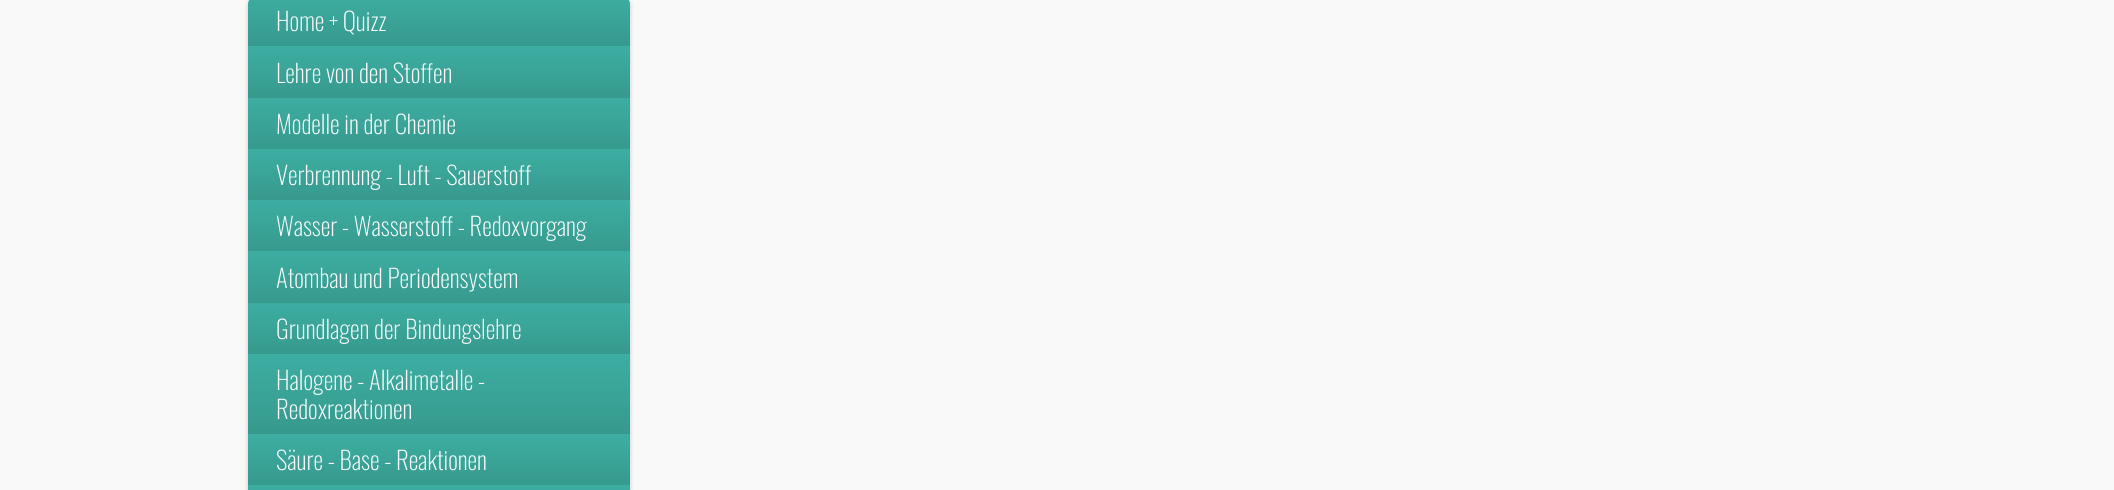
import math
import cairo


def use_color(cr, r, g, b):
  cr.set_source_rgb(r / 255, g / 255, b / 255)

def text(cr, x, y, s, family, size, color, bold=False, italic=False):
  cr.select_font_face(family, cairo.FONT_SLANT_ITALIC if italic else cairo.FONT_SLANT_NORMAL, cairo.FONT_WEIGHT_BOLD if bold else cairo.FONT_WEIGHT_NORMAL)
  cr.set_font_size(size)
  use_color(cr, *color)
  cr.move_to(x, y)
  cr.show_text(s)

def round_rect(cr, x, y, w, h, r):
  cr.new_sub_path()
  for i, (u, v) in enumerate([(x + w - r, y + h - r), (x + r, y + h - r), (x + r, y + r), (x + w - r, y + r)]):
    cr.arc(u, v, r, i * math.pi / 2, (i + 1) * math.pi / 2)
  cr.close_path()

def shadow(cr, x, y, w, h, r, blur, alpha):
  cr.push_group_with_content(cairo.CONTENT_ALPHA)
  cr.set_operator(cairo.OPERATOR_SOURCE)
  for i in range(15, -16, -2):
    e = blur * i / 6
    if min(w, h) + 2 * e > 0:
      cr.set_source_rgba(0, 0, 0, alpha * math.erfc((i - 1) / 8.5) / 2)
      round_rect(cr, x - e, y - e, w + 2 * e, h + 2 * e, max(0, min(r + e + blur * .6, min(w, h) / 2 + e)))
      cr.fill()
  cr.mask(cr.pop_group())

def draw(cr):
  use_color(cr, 249, 249, 249)
  cr.paint()
  use_color(cr, 0, 0, 0)
  shadow(cr, 248, -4, 382, 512, 10, 2.5, 0.2)
  use_color(cr, 69, 147, 140)
  cr.new_path()
  cr.move_to(258, -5)
  cr.line_to(620, -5)
  cr.curve_to(625.5, -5, 630, -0.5, 630, 5)
  cr.line_to(630, 46)
  cr.line_to(248, 46)
  cr.line_to(248, 5)
  cr.curve_to(248, -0.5, 252.5, -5, 258, -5)
  cr.close_path()
  cr.fill()
  gradient = cairo.LinearGradient(439, -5, 439, 46)
  gradient.add_color_stop_rgba(0, 0.224, 0.741, 0.682, 0.65)
  gradient.add_color_stop_rgba(1, 0.184, 0.612, 0.561, 0.65)
  cr.set_source(gradient)
  cr.new_path()
  cr.move_to(258, -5)
  cr.line_to(620, -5)
  cr.curve_to(625.5, -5, 630, -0.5, 630, 5)
  cr.line_to(630, 46)
  cr.line_to(248, 46)
  cr.line_to(248, 5)
  cr.curve_to(248, -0.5, 252.5, -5, 258, -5)
  cr.close_path()
  cr.fill()
  gradient = cairo.LinearGradient(439, 46, 439, 98)
  gradient.add_color_stop_rgba(0, 0.239, 0.682, 0.635, 1)
  gradient.add_color_stop_rgba(1, 0.216, 0.6, 0.557, 1)
  cr.set_source(gradient)
  cr.rectangle(248, 46, 382, 52)
  cr.fill()
  gradient = cairo.LinearGradient(439, 97, 439, 149)
  gradient.add_color_stop_rgba(0, 0.239, 0.682, 0.635, 1)
  gradient.add_color_stop_rgba(1, 0.216, 0.6, 0.557, 1)
  cr.set_source(gradient)
  cr.rectangle(248, 98, 382, 51)
  cr.fill()
  gradient = cairo.LinearGradient(439, 149, 439, 200)
  gradient.add_color_stop_rgba(0, 0.239, 0.682, 0.635, 1)
  gradient.add_color_stop_rgba(1, 0.216, 0.6, 0.557, 1)
  cr.set_source(gradient)
  cr.rectangle(248, 149, 382, 51)
  cr.fill()
  gradient = cairo.LinearGradient(439, 200, 439, 251)
  gradient.add_color_stop_rgba(0, 0.239, 0.682, 0.635, 1)
  gradient.add_color_stop_rgba(1, 0.216, 0.6, 0.557, 1)
  cr.set_source(gradient)
  cr.rectangle(248, 200, 382, 51)
  cr.fill()
  gradient = cairo.LinearGradient(439, 251, 439, 303)
  gradient.add_color_stop_rgba(0, 0.239, 0.682, 0.635, 1)
  gradient.add_color_stop_rgba(1, 0.216, 0.6, 0.557, 1)
  cr.set_source(gradient)
  cr.rectangle(248, 251, 382, 52)
  cr.fill()
  gradient = cairo.LinearGradient(439, 302, 439, 354)
  gradient.add_color_stop_rgba(0, 0.239, 0.682, 0.635, 1)
  gradient.add_color_stop_rgba(1, 0.216, 0.6, 0.557, 1)
  cr.set_source(gradient)
  cr.rectangle(248, 303, 382, 51)
  cr.fill()
  gradient = cairo.LinearGradient(439, 354, 439, 434)
  gradient.add_color_stop_rgba(0, 0.239, 0.682, 0.635, 1)
  gradient.add_color_stop_rgba(1, 0.216, 0.6, 0.557, 1)
  cr.set_source(gradient)
  cr.rectangle(248, 354, 382, 80)
  cr.fill()
  gradient = cairo.LinearGradient(439, 434, 439, 485)
  gradient.add_color_stop_rgba(0, 0.239, 0.682, 0.635, 1)
  gradient.add_color_stop_rgba(1, 0.216, 0.6, 0.557, 1)
  cr.set_source(gradient)
  cr.rectangle(248, 434, 382, 51)
  cr.fill()
  gradient = cairo.LinearGradient(439, 485, 439, 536)
  gradient.add_color_stop_rgba(0, 0.239, 0.682, 0.635, 1)
  gradient.add_color_stop_rgba(1, 0.216, 0.6, 0.557, 1)
  cr.set_source(gradient)
  cr.rectangle(248, 485, 382, 5)
  cr.fill()
  text(cr, 276, 31, "Home + Quizz", "Oswald ExtraLight", 25, (255, 255, 255))
  text(cr, 276, 83, "Lehre von den Stoffen", "Oswald ExtraLight", 25, (255, 255, 255))
  text(cr, 276, 134, "Modelle in der Chemie", "Oswald ExtraLight", 25, (255, 255, 255))
  text(cr, 276, 185, "Verbrennung - Luft - Sauerstoff", "Oswald ExtraLight", 25, (255, 255, 255))
  text(cr, 276, 236, "Wasser - Wasserstoff - Redoxvorgang", "Oswald ExtraLight", 25, (255, 255, 255))
  text(cr, 276, 288, "Atombau und Periodensystem", "Oswald ExtraLight", 25, (255, 255, 255))
  text(cr, 276, 339, "Grundlagen der Bindungslehre", "Oswald ExtraLight", 25, (255, 255, 255))
  text(cr, 276, 390, "Halogene - Alkalimetalle -", "Oswald ExtraLight", 25, (255, 255, 255))
  text(cr, 276, 419, "Redoxreaktionen", "Oswald ExtraLight", 25, (255, 255, 255))
  text(cr, 276, 470, "Säure - Base - Reaktionen", "Oswald ExtraLight", 25, (255, 255, 255))


surface = cairo.ImageSurface(cairo.FORMAT_RGB24, 2114, 490)
cr = cairo.Context(surface)
options = cairo.FontOptions()
options.set_hint_metrics(cairo.HINT_METRICS_OFF)
options.set_hint_style(cairo.HINT_STYLE_NONE)
cr.set_font_options(options)
cr.set_miter_limit(4)
draw(cr)
surface.write_to_png("out.png")
